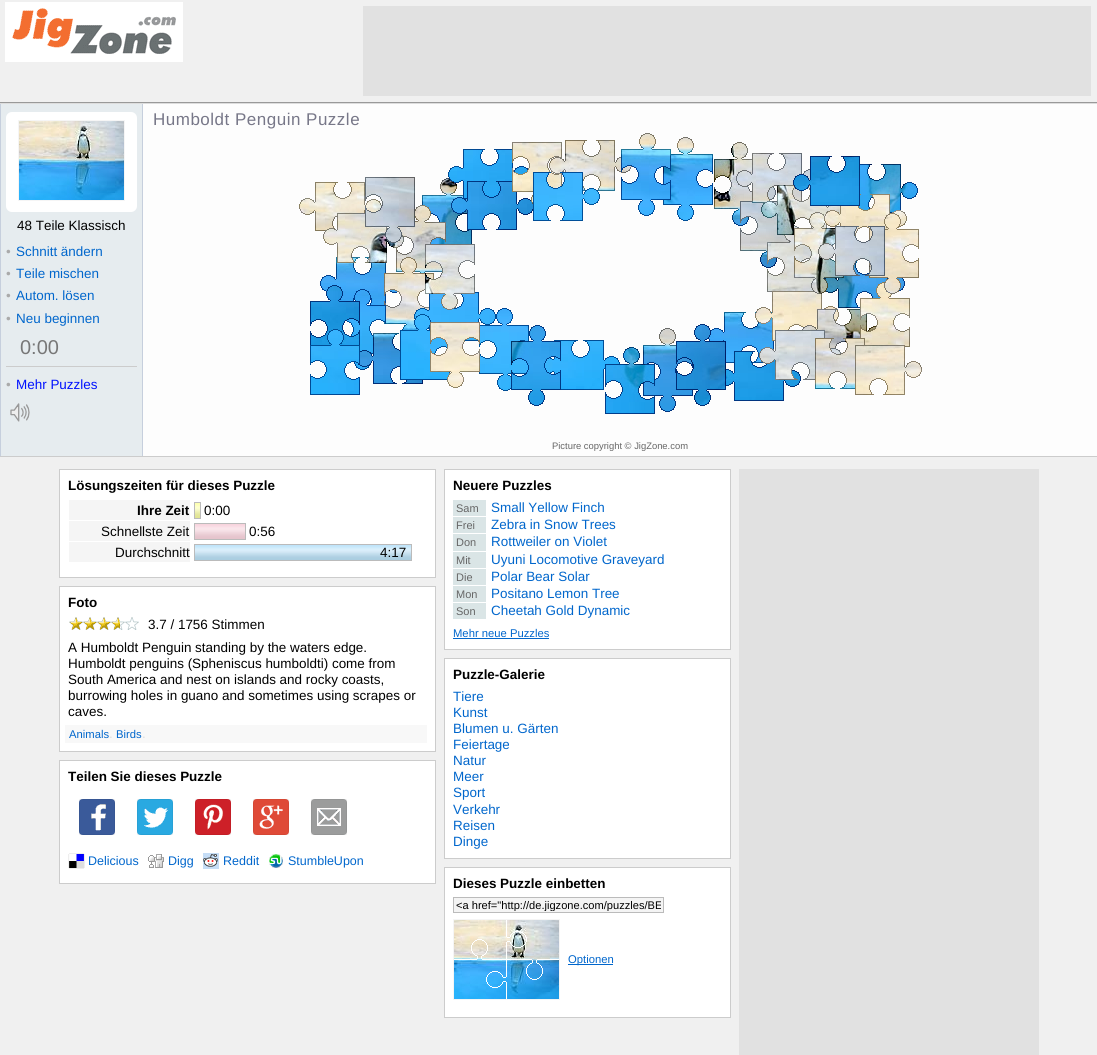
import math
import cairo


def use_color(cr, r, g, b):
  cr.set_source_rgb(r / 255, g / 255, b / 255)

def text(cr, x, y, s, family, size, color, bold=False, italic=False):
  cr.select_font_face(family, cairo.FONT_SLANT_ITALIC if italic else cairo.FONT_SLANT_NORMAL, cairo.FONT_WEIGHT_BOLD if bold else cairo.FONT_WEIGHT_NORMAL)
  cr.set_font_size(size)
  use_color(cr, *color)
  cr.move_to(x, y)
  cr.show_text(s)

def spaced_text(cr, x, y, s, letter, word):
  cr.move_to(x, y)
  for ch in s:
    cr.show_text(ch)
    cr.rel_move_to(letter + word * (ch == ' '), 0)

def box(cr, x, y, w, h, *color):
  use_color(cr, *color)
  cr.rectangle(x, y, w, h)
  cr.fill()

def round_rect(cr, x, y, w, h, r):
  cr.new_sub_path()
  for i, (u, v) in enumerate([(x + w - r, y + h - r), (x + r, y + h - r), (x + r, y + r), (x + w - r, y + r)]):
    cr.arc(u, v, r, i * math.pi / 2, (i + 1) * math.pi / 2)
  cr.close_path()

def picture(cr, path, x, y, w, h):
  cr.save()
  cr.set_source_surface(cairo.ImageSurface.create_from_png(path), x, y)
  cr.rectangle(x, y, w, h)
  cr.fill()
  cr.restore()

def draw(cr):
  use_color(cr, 240, 240, 240)
  cr.paint()
  box(cr, 0, 102, 1097, 1, 153, 153, 153)
  picture(cr, "img_01.png", 5, 2, 178, 60)
  box(cr, 363, 6, 728, 90, 225, 225, 225)
  box(cr, 143, 104, 954, 352, 253, 253, 253)
  box(cr, 0, 103, 1097, 1, 221, 221, 221)
  box(cr, 0, 456, 1097, 1, 204, 204, 204)
  box(cr, 1, 104, 141, 352, 230, 236, 239)
  box(cr, 142, 104, 1, 352, 198, 207, 221)
  box(cr, 0, 104, 1, 352, 198, 207, 221)
  use_color(cr, 255, 255, 255)
  round_rect(cr, 6, 112, 131, 100, 6)
  cr.fill()
  cr.rectangle(18.5, 120.5, 106, 80)
  use_color(cr, 245, 245, 245)
  cr.set_line_width(1)
  cr.stroke()
  picture(cr, "img_02.png", 19, 121, 105, 79)
  box(cr, 6, 366, 131, 1, 204, 204, 204)
  picture(cr, "img_03.png", 10, 403, 20, 19)
  picture(cr, "img_04.png", 299, 133, 623, 281)
  use_color(cr, 255, 255, 255)
  cr.rectangle(59.5, 469.5, 376, 108)
  cr.fill_preserve()
  use_color(cr, 204, 204, 204)
  cr.stroke()
  box(cr, 69, 500, 121, 20, 245, 245, 245)
  picture(cr, "img_05.png", 195, 503, 5, 15)
  cr.rectangle(194.5, 502.5, 6, 16)
  use_color(cr, 187, 187, 187)
  cr.stroke()
  box(cr, 69, 521, 121, 20, 245, 245, 245)
  picture(cr, "img_06.png", 195, 524, 50, 15)
  cr.rectangle(194.5, 523.5, 51, 16)
  use_color(cr, 187, 187, 187)
  cr.stroke()
  box(cr, 69, 542, 121, 20, 245, 245, 245)
  picture(cr, "img_07.png", 195, 545, 216, 15)
  cr.rectangle(194.5, 544.5, 217, 16)
  use_color(cr, 187, 187, 187)
  cr.stroke()
  use_color(cr, 255, 255, 255)
  cr.rectangle(59.5, 586.5, 376, 165)
  cr.fill_preserve()
  use_color(cr, 204, 204, 204)
  cr.stroke()
  picture(cr, "img_08.png", 69, 617, 51, 13)
  picture(cr, "img_09.png", 120, 617, 19, 13)
  box(cr, 65, 725, 362, 18, 248, 248, 248)
  use_color(cr, 255, 255, 255)
  cr.rectangle(59.5, 760.5, 376, 123)
  cr.fill_preserve()
  use_color(cr, 204, 204, 204)
  cr.stroke()
  picture(cr, "img_10.png", 79, 799, 36, 36)
  cr.rectangle(79.5, 799.5, 35, 35)
  cr.set_source_rgba(0, 0, 0, 0.05)
  cr.stroke()
  picture(cr, "img_11.png", 137, 799, 36, 36)
  cr.rectangle(137.5, 799.5, 35, 35)
  cr.stroke()
  picture(cr, "img_12.png", 195, 799, 36, 36)
  cr.rectangle(195.5, 799.5, 35, 35)
  cr.stroke()
  picture(cr, "img_13.png", 253, 799, 36, 36)
  cr.rectangle(253.5, 799.5, 35, 35)
  cr.stroke()
  picture(cr, "img_14.png", 311, 799, 36, 36)
  cr.rectangle(311.5, 799.5, 35, 35)
  cr.stroke()
  picture(cr, "img_15.png", 68, 853, 17, 16)
  picture(cr, "img_16.png", 148, 854, 16, 14)
  picture(cr, "img_17.png", 203, 853, 16, 16)
  picture(cr, "img_18.png", 269, 854, 14, 14)
  use_color(cr, 255, 255, 255)
  cr.rectangle(444.5, 469.5, 286, 180)
  cr.fill_preserve()
  use_color(cr, 204, 204, 204)
  cr.stroke()
  box(cr, 453, 500, 33, 16, 218, 229, 230)
  box(cr, 453, 517, 33, 16, 218, 229, 230)
  box(cr, 453, 534, 33, 17, 218, 229, 230)
  box(cr, 453, 552, 33, 16, 218, 229, 230)
  box(cr, 453, 569, 33, 16, 218, 229, 230)
  box(cr, 453, 586, 33, 16, 218, 229, 230)
  box(cr, 453, 603, 33, 16, 218, 229, 230)
  box(cr, 453, 638, 96, 1, 0, 102, 204)
  use_color(cr, 255, 255, 255)
  cr.rectangle(444.5, 658.5, 286, 200)
  cr.fill_preserve()
  use_color(cr, 204, 204, 204)
  cr.stroke()
  use_color(cr, 255, 255, 255)
  cr.rectangle(444.5, 867.5, 286, 150)
  cr.fill_preserve()
  use_color(cr, 204, 204, 204)
  cr.stroke()
  use_color(cr, 244, 244, 244)
  cr.rectangle(453.5, 897.5, 210, 15)
  cr.fill_preserve()
  use_color(cr, 187, 187, 187)
  cr.stroke()
  picture(cr, "img_19.png", 454, 920, 105, 79)
  cr.rectangle(453.5, 919.5, 106, 80)
  use_color(cr, 245, 245, 245)
  cr.stroke()
  box(cr, 568, 964, 45, 1, 0, 102, 204)
  box(cr, 739, 469, 300, 586, 225, 225, 225)
  text(cr, 17, 230, "48 Teile Klassisch", "Liberation Sans", 13.45, (0, 0, 0))
  text(cr, 6, 256, "•", "Liberation Sans", 13.45, (170, 170, 170))
  text(cr, 16, 256, "Schnitt ändern", "Liberation Sans", 13.45, (0, 102, 204))
  text(cr, 6, 278, "•", "Liberation Sans", 13.45, (170, 170, 170))
  text(cr, 16, 278, "Teile mischen", "Liberation Sans", 13.45, (0, 102, 204))
  text(cr, 6, 300, "•", "Liberation Sans", 13.45, (170, 170, 170))
  text(cr, 16, 300, "Autom. lösen", "Liberation Sans", 13.45, (0, 102, 204))
  text(cr, 6, 323, "•", "Liberation Sans", 13.45, (170, 170, 170))
  text(cr, 16, 323, "Neu beginnen", "Liberation Sans", 13.45, (0, 102, 204))
  text(cr, 20, 354, "0:00", "Liberation Sans", 20, (119, 119, 119))
  text(cr, 6, 389, "•", "Liberation Sans", 13.45, (170, 170, 170))
  text(cr, 16, 389, "Mehr Puzzles", "Liberation Sans", 13.45, (0, 17, 255))
  cr.set_font_size(17)
  use_color(cr, 119, 119, 136)
  spaced_text(cr, 153, 125, "Humboldt Penguin Puzzle", 0.5, 0)
  text(cr, 552, 449, "Picture copyright © JigZone.com", "Liberation Sans", 9.4, (102, 102, 102))
  text(cr, 68, 490, "Lösungszeiten für dieses Puzzle", "Liberation Sans", 13.45, (0, 0, 0), bold=True)
  text(cr, 137, 515, "Ihre Zeit", "Liberation Sans", 13.45, (0, 0, 0), bold=True)
  text(cr, 204, 515, "0:00", "Liberation Sans", 13.45, (0, 0, 0))
  text(cr, 101, 536, "Schnellste Zeit", "Liberation Sans", 13.45, (0, 0, 0))
  text(cr, 249, 536, "0:56", "Liberation Sans", 13.45, (0, 0, 0))
  text(cr, 115, 557, "Durchschnitt", "Liberation Sans", 13.45, (0, 0, 0))
  text(cr, 380, 557, "4:17", "Liberation Sans", 13.45, (0, 0, 0))
  text(cr, 68, 607, "Foto", "Liberation Sans", 13.45, (0, 0, 0), bold=True)
  text(cr, 148, 629, "3.7 / 1756 Stimmen", "Liberation Sans", 13.45, (0, 0, 0))
  text(cr, 68, 652, "A Humboldt Penguin standing by the waters edge.", "Liberation Sans", 13.45, (0, 0, 0))
  text(cr, 68, 668, "Humboldt penguins (Spheniscus humboldti) come from", "Liberation Sans", 13.45, (0, 0, 0))
  text(cr, 68, 684, "South America and nest on islands and rocky coasts,", "Liberation Sans", 13.45, (0, 0, 0))
  text(cr, 68, 700, "burrowing holes in guano and sometimes using scrapes or", "Liberation Sans", 13.45, (0, 0, 0))
  text(cr, 68, 716, "caves.", "Liberation Sans", 13.45, (0, 0, 0))
  text(cr, 69, 738, "Animals", "Liberation Sans", 11.25, (0, 102, 204))
  text(cr, 109, 738, ".", "Liberation Sans", 13.45, (221, 221, 221))
  text(cr, 116, 738, "Birds", "Liberation Sans", 11.25, (0, 102, 204))
  text(cr, 142, 738, ".", "Liberation Sans", 13.45, (221, 221, 221))
  text(cr, 68, 781, "Teilen Sie dieses Puzzle", "Liberation Sans", 13.45, (0, 0, 0), bold=True)
  text(cr, 88, 865, "Delicious", "Liberation Sans", 12.5, (0, 102, 204))
  text(cr, 168, 865, "Digg", "Liberation Sans", 12.5, (0, 102, 204))
  text(cr, 223, 865, "Reddit", "Liberation Sans", 12.5, (0, 102, 204))
  text(cr, 288, 865, "StumbleUpon", "Liberation Sans", 12.5, (0, 102, 204))
  text(cr, 453, 490, "Neuere Puzzles", "Liberation Sans", 13.45, (0, 0, 0), bold=True)
  text(cr, 456, 512, "Sam", "Liberation Sans", 11, (102, 102, 102))
  text(cr, 491, 512, "Small Yellow Finch", "Liberation Sans", 13.45, (0, 102, 204))
  text(cr, 456, 529, "Frei", "Liberation Sans", 11, (102, 102, 102))
  text(cr, 491, 529, "Zebra in Snow Trees", "Liberation Sans", 13.45, (0, 102, 204))
  text(cr, 456, 546, "Don", "Liberation Sans", 11, (102, 102, 102))
  text(cr, 491, 546, "Rottweiler on Violet", "Liberation Sans", 13.45, (0, 102, 204))
  text(cr, 456, 564, "Mit", "Liberation Sans", 11, (102, 102, 102))
  text(cr, 491, 564, "Uyuni Locomotive Graveyard", "Liberation Sans", 13.45, (0, 102, 204))
  text(cr, 456, 581, "Die", "Liberation Sans", 11, (102, 102, 102))
  text(cr, 491, 581, "Polar Bear Solar", "Liberation Sans", 13.45, (0, 102, 204))
  text(cr, 456, 598, "Mon", "Liberation Sans", 11, (102, 102, 102))
  text(cr, 491, 598, "Positano Lemon Tree", "Liberation Sans", 13.45, (0, 102, 204))
  text(cr, 456, 615, "Son", "Liberation Sans", 11, (102, 102, 102))
  text(cr, 491, 615, "Cheetah Gold Dynamic", "Liberation Sans", 13.45, (0, 102, 204))
  text(cr, 453, 637, "Mehr neue Puzzles", "Liberation Sans", 11.25, (0, 102, 204))
  text(cr, 453, 679, "Puzzle-Galerie", "Liberation Sans", 13.45, (0, 0, 0), bold=True)
  text(cr, 453, 701, "Tiere", "Liberation Sans", 13.45, (0, 102, 204))
  text(cr, 453, 717, "Kunst", "Liberation Sans", 13.45, (0, 102, 204))
  text(cr, 453, 733, "Blumen u. Gärten", "Liberation Sans", 13.45, (0, 102, 204))
  text(cr, 453, 749, "Feiertage", "Liberation Sans", 13.45, (0, 102, 204))
  text(cr, 453, 765, "Natur", "Liberation Sans", 13.45, (0, 102, 204))
  text(cr, 453, 781, "Meer", "Liberation Sans", 13.45, (0, 102, 204))
  text(cr, 453, 797, "Sport", "Liberation Sans", 13.45, (0, 102, 204))
  text(cr, 453, 814, "Verkehr", "Liberation Sans", 13.45, (0, 102, 204))
  text(cr, 453, 830, "Reisen", "Liberation Sans", 13.45, (0, 102, 204))
  text(cr, 453, 846, "Dinge", "Liberation Sans", 13.45, (0, 102, 204))
  text(cr, 453, 888, "Dieses Puzzle einbetten", "Liberation Sans", 13.45, (0, 0, 0), bold=True)
  cr.save()
  cr.rectangle(456, 899, 205, 12)
  cr.clip()
  text(cr, 456, 909, "<a href=\"http://de.jigzone.com/puzzles/BE", "Liberation Sans", 11.1, (0, 0, 0))
  cr.restore()
  text(cr, 568, 963, "Optionen", "Liberation Sans", 11.25, (0, 102, 204))


surface = cairo.ImageSurface(cairo.FORMAT_RGB24, 1097, 1055)
cr = cairo.Context(surface)
options = cairo.FontOptions()
options.set_hint_metrics(cairo.HINT_METRICS_OFF)
options.set_hint_style(cairo.HINT_STYLE_NONE)
cr.set_font_options(options)
cr.set_miter_limit(4)
draw(cr)
surface.write_to_png("out.png")
